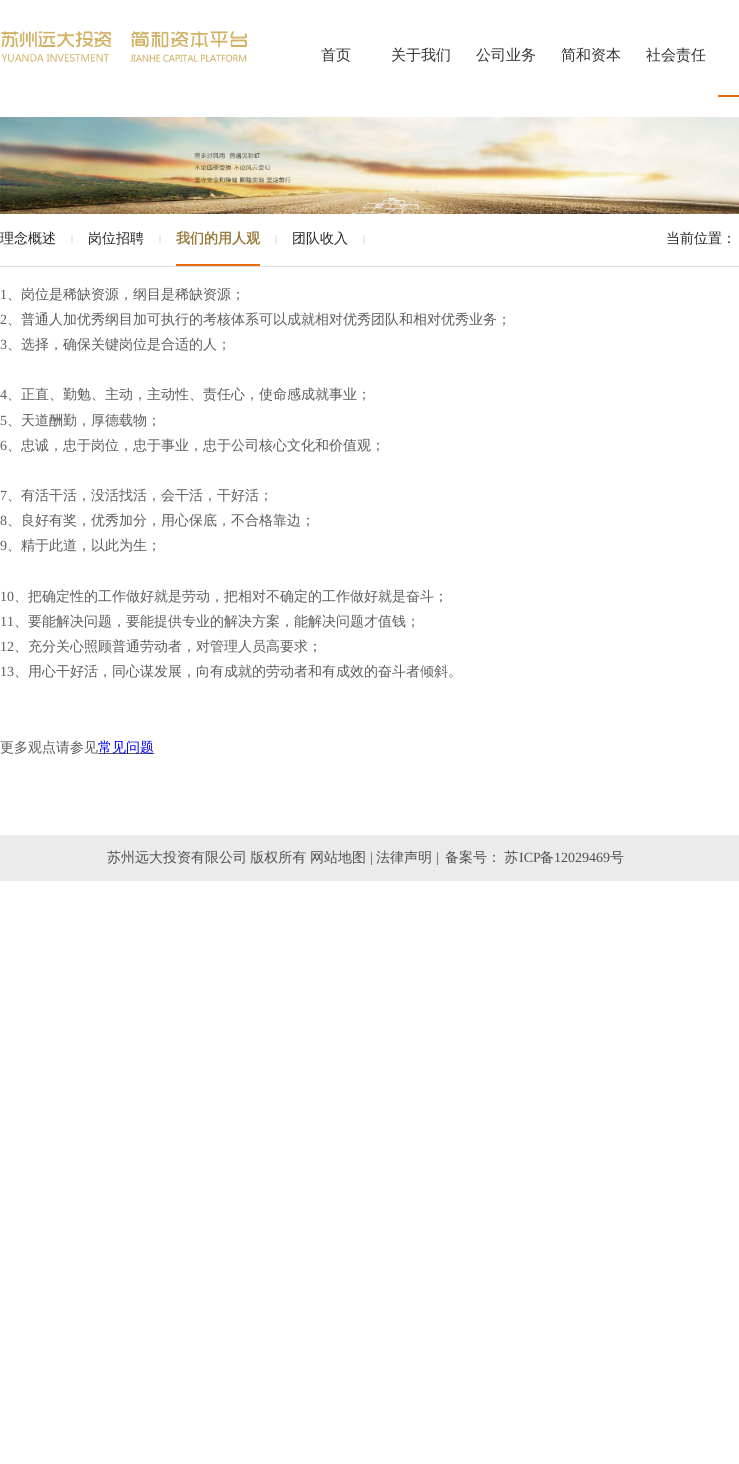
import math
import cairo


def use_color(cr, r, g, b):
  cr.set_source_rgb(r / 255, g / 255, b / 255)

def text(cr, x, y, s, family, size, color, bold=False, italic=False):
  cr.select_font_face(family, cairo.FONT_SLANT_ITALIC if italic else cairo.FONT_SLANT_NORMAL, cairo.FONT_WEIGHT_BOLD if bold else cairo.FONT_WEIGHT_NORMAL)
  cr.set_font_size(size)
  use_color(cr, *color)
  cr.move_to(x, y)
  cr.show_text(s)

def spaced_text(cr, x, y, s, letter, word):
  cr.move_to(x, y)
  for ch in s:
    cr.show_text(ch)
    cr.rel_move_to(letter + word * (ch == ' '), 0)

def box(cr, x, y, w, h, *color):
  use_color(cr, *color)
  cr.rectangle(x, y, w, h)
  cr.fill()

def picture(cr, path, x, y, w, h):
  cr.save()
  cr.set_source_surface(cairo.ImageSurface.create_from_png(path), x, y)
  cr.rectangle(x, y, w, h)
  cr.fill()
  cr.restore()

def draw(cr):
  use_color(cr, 255, 255, 255)
  cr.paint()
  picture(cr, "img_01.png", 1, 31, 247, 31)
  box(cr, 718, 95, 21, 2, 228, 108, 10)
  picture(cr, "img_02.png", 0, 117, 739, 97)
  box(cr, 0, 266, 739, 1, 222, 222, 222)
  box(cr, 176, 264, 84, 2, 228, 108, 10)
  box(cr, 98, 753, 56, 1, 92, 92, 92)
  box(cr, 0, 835, 739, 46, 235, 235, 235)
  text(cr, 321, 60, "首页", "WenQuanYi Zen Hei Medium", 15, (51, 51, 51))
  text(cr, 391, 60, "关于我们", "WenQuanYi Zen Hei Medium", 15, (51, 51, 51))
  text(cr, 476, 60, "公司业务", "WenQuanYi Zen Hei Medium", 15, (51, 51, 51))
  text(cr, 561, 60, "简和资本", "WenQuanYi Zen Hei Medium", 15, (51, 51, 51))
  text(cr, 646, 60, "社会责任", "WenQuanYi Zen Hei Medium", 15, (51, 51, 51))
  text(cr, 0, 243, "理念概述", "WenQuanYi Zen Hei Medium", 14, (37, 37, 37))
  text(cr, 71, 242, "|", "Liberation Serif", 10, (182, 182, 182))
  text(cr, 88, 243, "岗位招聘", "WenQuanYi Zen Hei Medium", 14, (37, 37, 37))
  text(cr, 159, 242, "|", "Liberation Serif", 10, (182, 182, 182))
  text(cr, 176, 243, "我们的用人观", "WenQuanYi Zen Hei", 14, (153, 122, 60), bold=True)
  text(cr, 275, 242, "|", "Liberation Serif", 10, (182, 182, 182))
  text(cr, 292, 243, "团队收入", "WenQuanYi Zen Hei Medium", 14, (37, 37, 37))
  text(cr, 363, 242, "|", "Liberation Serif", 10, (182, 182, 182))
  text(cr, 666, 243, "当前位置：", "WenQuanYi Zen Hei Medium", 14, (37, 37, 37))
  text(cr, 0, 299, "1", "Liberation Serif", 14, (92, 92, 92))
  text(cr, 7, 299, "、岗位是稀缺资源，纲目是稀缺资源；", "WenQuanYi Zen Hei Medium", 14, (92, 92, 92))
  text(cr, 0, 324, "2", "Liberation Serif", 14, (92, 92, 92))
  text(cr, 7, 324, "、普通人加优秀纲目加可执行的考核体系可以成就相对优秀团队和相对优秀业务；", "WenQuanYi Zen Hei Medium", 14, (92, 92, 92))
  text(cr, 0, 349, "3", "Liberation Serif", 14, (92, 92, 92))
  text(cr, 7, 349, "、选择，确保关键岗位是合适的人；", "WenQuanYi Zen Hei Medium", 14, (92, 92, 92))
  text(cr, 0, 399, "4", "Liberation Serif", 14, (92, 92, 92))
  text(cr, 7, 399, "、正直、勤勉、主动，主动性、责任心，使命感成就事业；", "WenQuanYi Zen Hei Medium", 14, (92, 92, 92))
  text(cr, 0, 425, "5", "Liberation Serif", 14, (92, 92, 92))
  text(cr, 7, 425, "、天道酬勤，厚德载物；", "WenQuanYi Zen Hei Medium", 14, (92, 92, 92))
  text(cr, 0, 450, "6", "Liberation Serif", 14, (92, 92, 92))
  text(cr, 7, 450, "、忠诚，忠于岗位，忠于事业，忠于公司核心文化和价值观；", "WenQuanYi Zen Hei Medium", 14, (92, 92, 92))
  text(cr, 0, 500, "7", "Liberation Serif", 14, (92, 92, 92))
  text(cr, 7, 500, "、有活干活，没活找活，会干活，干好活；", "WenQuanYi Zen Hei Medium", 14, (92, 92, 92))
  text(cr, 0, 525, "8", "Liberation Serif", 14, (92, 92, 92))
  text(cr, 7, 525, "、良好有奖，优秀加分，用心保底，不合格靠边；", "WenQuanYi Zen Hei Medium", 14, (92, 92, 92))
  text(cr, 0, 550, "9", "Liberation Serif", 14, (92, 92, 92))
  text(cr, 7, 550, "、精于此道，以此为生；", "WenQuanYi Zen Hei Medium", 14, (92, 92, 92))
  text(cr, 0, 601, "10", "Liberation Serif", 14, (92, 92, 92))
  text(cr, 14, 601, "、把确定性的工作做好就是劳动，把相对不确定的工作做好就是奋斗；", "WenQuanYi Zen Hei Medium", 14, (92, 92, 92))
  text(cr, 0, 626, "11", "Liberation Serif", 14, (92, 92, 92))
  text(cr, 14, 626, "、要能解决问题，要能提供专业的解决方案，能解决问题才值钱；", "WenQuanYi Zen Hei Medium", 14, (92, 92, 92))
  text(cr, 0, 651, "12", "Liberation Serif", 14, (92, 92, 92))
  text(cr, 14, 651, "、充分关心照顾普通劳动者，对管理人员高要求；", "WenQuanYi Zen Hei Medium", 14, (92, 92, 92))
  text(cr, 0, 676, "13", "Liberation Serif", 14, (92, 92, 92))
  text(cr, 14, 676, "、用心干好活，同心谋发展，向有成就的劳动者和有成效的奋斗者倾斜。", "WenQuanYi Zen Hei Medium", 14, (92, 92, 92))
  text(cr, 0, 752, "更多观点请参见", "WenQuanYi Zen Hei Medium", 14, (92, 92, 92))
  text(cr, 98, 752, "常见问题", "WenQuanYi Zen Hei Medium", 14, (0, 0, 255))
  use_color(cr, 80, 80, 80)
  spaced_text(cr, 107, 862, "苏州远大投资有限公司 版权所有", 0, -1)
  text(cr, 310, 862, "网站地图", "WenQuanYi Zen Hei Medium", 14, (80, 80, 80))
  text(cr, 370, 862, "|", "Liberation Serif", 14, (80, 80, 80))
  text(cr, 376, 862, "法律声明", "WenQuanYi Zen Hei Medium", 14, (80, 80, 80))
  text(cr, 436, 862, "|", "Liberation Serif", 14, (80, 80, 80))
  cr.select_font_face("WenQuanYi Zen Hei Medium")
  spaced_text(cr, 445, 862, "备案号： 苏", 0, -1)
  text(cr, 519, 862, "ICP", "Liberation Serif", 14, (80, 80, 80))
  text(cr, 540, 862, "备", "WenQuanYi Zen Hei Medium", 14, (80, 80, 80))
  text(cr, 554, 862, "12029469", "Liberation Serif", 14, (80, 80, 80))
  text(cr, 610, 862, "号", "WenQuanYi Zen Hei Medium", 14, (80, 80, 80))


surface = cairo.ImageSurface(cairo.FORMAT_RGB24, 739, 1464)
cr = cairo.Context(surface)
options = cairo.FontOptions()
options.set_hint_metrics(cairo.HINT_METRICS_OFF)
options.set_hint_style(cairo.HINT_STYLE_NONE)
cr.set_font_options(options)
cr.set_miter_limit(4)
draw(cr)
surface.write_to_png("out.png")
